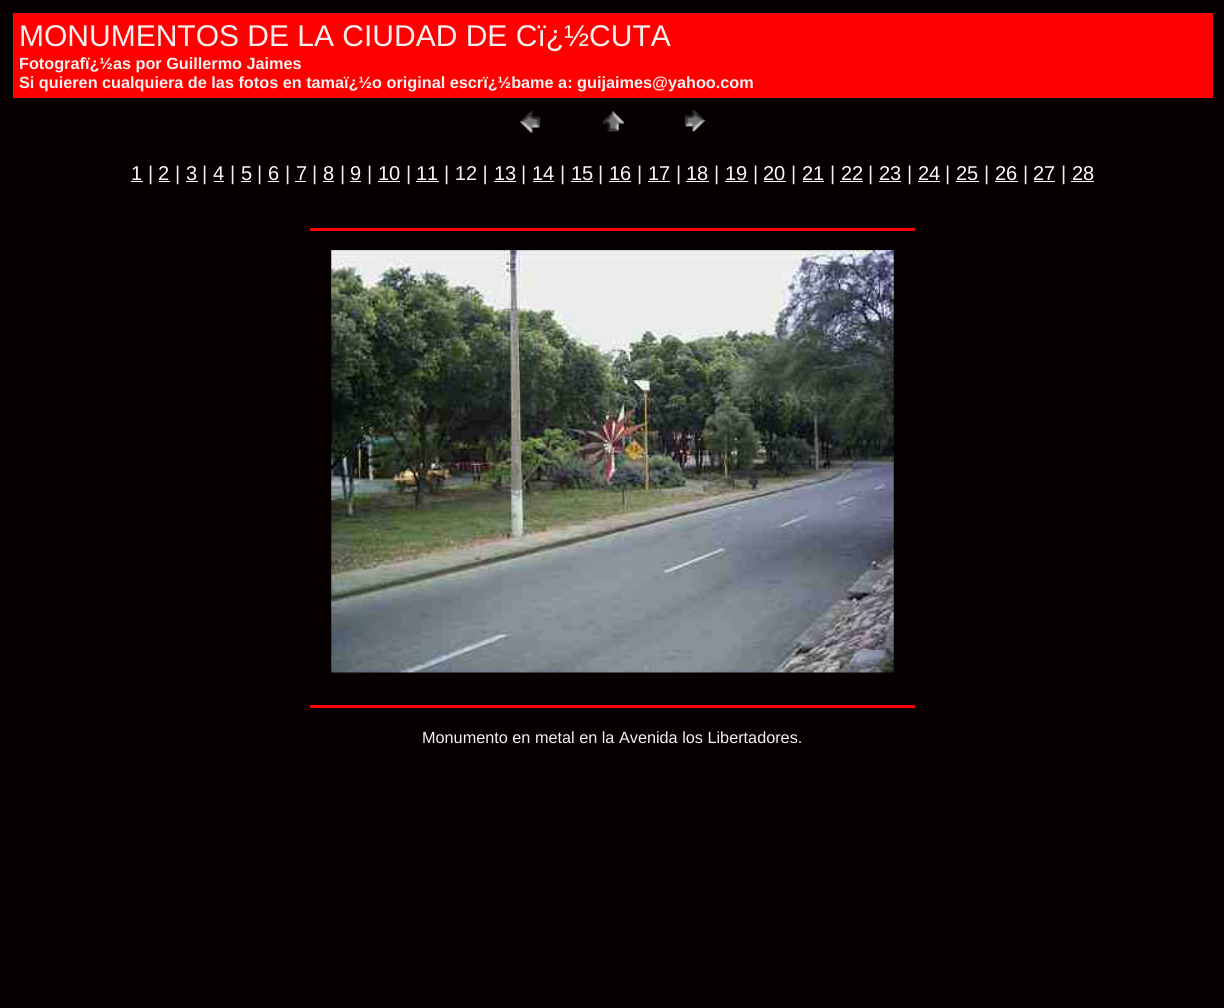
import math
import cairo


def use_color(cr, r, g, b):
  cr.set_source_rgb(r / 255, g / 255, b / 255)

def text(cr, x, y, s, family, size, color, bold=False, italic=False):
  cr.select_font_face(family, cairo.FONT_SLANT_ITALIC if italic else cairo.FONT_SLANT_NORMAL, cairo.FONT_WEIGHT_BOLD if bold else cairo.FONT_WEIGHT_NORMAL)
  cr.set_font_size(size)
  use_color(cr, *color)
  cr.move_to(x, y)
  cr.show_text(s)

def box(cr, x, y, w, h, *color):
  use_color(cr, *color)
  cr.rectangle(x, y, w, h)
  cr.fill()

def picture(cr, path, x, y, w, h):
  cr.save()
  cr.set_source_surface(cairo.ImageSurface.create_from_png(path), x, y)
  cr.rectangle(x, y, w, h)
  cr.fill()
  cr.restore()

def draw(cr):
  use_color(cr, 7, 0, 0)
  cr.paint()
  box(cr, 13, 13, 1200, 85, 255, 0, 0)
  picture(cr, "img_01.png", 519, 111, 22, 22)
  picture(cr, "img_02.png", 602, 111, 22, 21)
  picture(cr, "img_03.png", 685, 110, 21, 22)
  box(cr, 131, 181, 12, 1, 250, 251, 250)
  box(cr, 159, 181, 11, 1, 250, 251, 250)
  box(cr, 186, 181, 12, 1, 250, 251, 250)
  box(cr, 214, 181, 10, 1, 250, 251, 250)
  box(cr, 241, 181, 10, 1, 250, 251, 250)
  box(cr, 268, 181, 11, 1, 250, 251, 250)
  box(cr, 295, 181, 11, 1, 250, 251, 250)
  box(cr, 323, 181, 11, 1, 250, 251, 250)
  box(cr, 350, 181, 11, 1, 250, 251, 250)
  box(cr, 378, 181, 22, 1, 250, 251, 250)
  box(cr, 416, 181, 23, 1, 250, 251, 250)
  box(cr, 494, 181, 22, 1, 250, 251, 250)
  box(cr, 533, 181, 21, 1, 250, 251, 250)
  box(cr, 571, 181, 22, 1, 250, 251, 250)
  box(cr, 609, 181, 22, 1, 250, 251, 250)
  box(cr, 648, 181, 22, 1, 250, 251, 250)
  box(cr, 686, 181, 23, 1, 250, 251, 250)
  box(cr, 725, 181, 23, 1, 250, 251, 250)
  box(cr, 764, 181, 22, 1, 250, 251, 250)
  box(cr, 803, 181, 21, 1, 250, 251, 250)
  box(cr, 840, 181, 23, 1, 250, 251, 250)
  box(cr, 879, 181, 22, 1, 250, 251, 250)
  box(cr, 918, 181, 22, 1, 250, 251, 250)
  box(cr, 956, 181, 23, 1, 250, 251, 250)
  box(cr, 995, 181, 23, 1, 250, 251, 250)
  box(cr, 1034, 181, 21, 1, 250, 251, 250)
  box(cr, 1071, 181, 23, 1, 250, 251, 250)
  box(cr, 310, 228, 605, 3, 255, 0, 0)
  picture(cr, "img_04.png", 331, 250, 563, 423)
  box(cr, 310, 705, 605, 3, 255, 0, 0)
  text(cr, 19, 46, "MONUMENTOS DE LA CIUDAD DE Cï¿½CUTA", "Liberation Sans", 30, (247, 240, 240))
  text(cr, 19, 69, "Fotografï¿½as por Guillermo Jaimes", "Liberation Sans", 16.25, (247, 240, 240), bold=True)
  text(cr, 19, 88, "Si quieren cualquiera de las fotos en tamaï¿½o original escrï¿½bame a: guijaimes@yahoo.com", "Liberation Sans", 16.25, (247, 240, 240), bold=True)
  text(cr, 131, 180, "1", "Liberation Sans", 20, (250, 251, 250))
  text(cr, 148, 180, "|", "Liberation Sans", 20, (247, 240, 240))
  text(cr, 158, 180, "2", "Liberation Sans", 20, (250, 251, 250))
  text(cr, 175, 180, "|", "Liberation Sans", 20, (247, 240, 240))
  text(cr, 186, 180, "3", "Liberation Sans", 20, (250, 251, 250))
  text(cr, 202, 180, "|", "Liberation Sans", 20, (247, 240, 240))
  text(cr, 213, 180, "4", "Liberation Sans", 20, (250, 251, 250))
  text(cr, 230, 180, "|", "Liberation Sans", 20, (247, 240, 240))
  text(cr, 241, 180, "5", "Liberation Sans", 20, (250, 251, 250))
  text(cr, 257, 180, "|", "Liberation Sans", 20, (247, 240, 240))
  text(cr, 268, 180, "6", "Liberation Sans", 20, (250, 251, 250))
  text(cr, 285, 180, "|", "Liberation Sans", 20, (247, 240, 240))
  text(cr, 296, 180, "7", "Liberation Sans", 20, (250, 251, 250))
  text(cr, 312, 180, "|", "Liberation Sans", 20, (247, 240, 240))
  text(cr, 323, 180, "8", "Liberation Sans", 20, (250, 251, 250))
  text(cr, 340, 180, "|", "Liberation Sans", 20, (247, 240, 240))
  text(cr, 350, 180, "9", "Liberation Sans", 20, (250, 251, 250))
  text(cr, 367, 180, "|", "Liberation Sans", 20, (247, 240, 240))
  text(cr, 378, 180, "10", "Liberation Sans", 20, (250, 251, 250))
  text(cr, 406, 180, "|", "Liberation Sans", 20, (247, 240, 240))
  text(cr, 416, 180, "11", "Liberation Sans", 20, (250, 251, 250))
  text(cr, 444, 180, "| 12 |", "Liberation Sans", 20, (247, 240, 240))
  text(cr, 494, 180, "13", "Liberation Sans", 20, (250, 251, 250))
  text(cr, 521, 180, "|", "Liberation Sans", 20, (247, 240, 240))
  text(cr, 532, 180, "14", "Liberation Sans", 20, (250, 251, 250))
  text(cr, 560, 180, "|", "Liberation Sans", 20, (247, 240, 240))
  text(cr, 571, 180, "15", "Liberation Sans", 20, (250, 251, 250))
  text(cr, 598, 180, "|", "Liberation Sans", 20, (247, 240, 240))
  text(cr, 609, 180, "16", "Liberation Sans", 20, (250, 251, 250))
  text(cr, 637, 180, "|", "Liberation Sans", 20, (247, 240, 240))
  text(cr, 648, 180, "17", "Liberation Sans", 20, (250, 251, 250))
  text(cr, 676, 180, "|", "Liberation Sans", 20, (247, 240, 240))
  text(cr, 686, 180, "18", "Liberation Sans", 20, (250, 251, 250))
  text(cr, 714, 180, "|", "Liberation Sans", 20, (247, 240, 240))
  text(cr, 725, 180, "19", "Liberation Sans", 20, (250, 251, 250))
  text(cr, 753, 180, "|", "Liberation Sans", 20, (247, 240, 240))
  text(cr, 763, 180, "20", "Liberation Sans", 20, (250, 251, 250))
  text(cr, 791, 180, "|", "Liberation Sans", 20, (247, 240, 240))
  text(cr, 802, 180, "21", "Liberation Sans", 20, (250, 251, 250))
  text(cr, 830, 180, "|", "Liberation Sans", 20, (247, 240, 240))
  text(cr, 841, 180, "22", "Liberation Sans", 20, (250, 251, 250))
  text(cr, 868, 180, "|", "Liberation Sans", 20, (247, 240, 240))
  text(cr, 879, 180, "23", "Liberation Sans", 20, (250, 251, 250))
  text(cr, 907, 180, "|", "Liberation Sans", 20, (247, 240, 240))
  text(cr, 918, 180, "24", "Liberation Sans", 20, (250, 251, 250))
  text(cr, 945, 180, "|", "Liberation Sans", 20, (247, 240, 240))
  text(cr, 956, 180, "25", "Liberation Sans", 20, (250, 251, 250))
  text(cr, 984, 180, "|", "Liberation Sans", 20, (247, 240, 240))
  text(cr, 995, 180, "26", "Liberation Sans", 20, (250, 251, 250))
  text(cr, 1023, 180, "|", "Liberation Sans", 20, (247, 240, 240))
  text(cr, 1033, 180, "27", "Liberation Sans", 20, (250, 251, 250))
  text(cr, 1061, 180, "|", "Liberation Sans", 20, (247, 240, 240))
  text(cr, 1072, 180, "28", "Liberation Sans", 20, (250, 251, 250))
  text(cr, 422, 743, "Monumento en metal en la Avenida los Libertadores.", "Liberation Sans", 16.25, (247, 240, 240))


surface = cairo.ImageSurface(cairo.FORMAT_RGB24, 1224, 1008)
cr = cairo.Context(surface)
options = cairo.FontOptions()
options.set_hint_metrics(cairo.HINT_METRICS_OFF)
options.set_hint_style(cairo.HINT_STYLE_NONE)
cr.set_font_options(options)
cr.set_miter_limit(4)
draw(cr)
surface.write_to_png("out.png")
